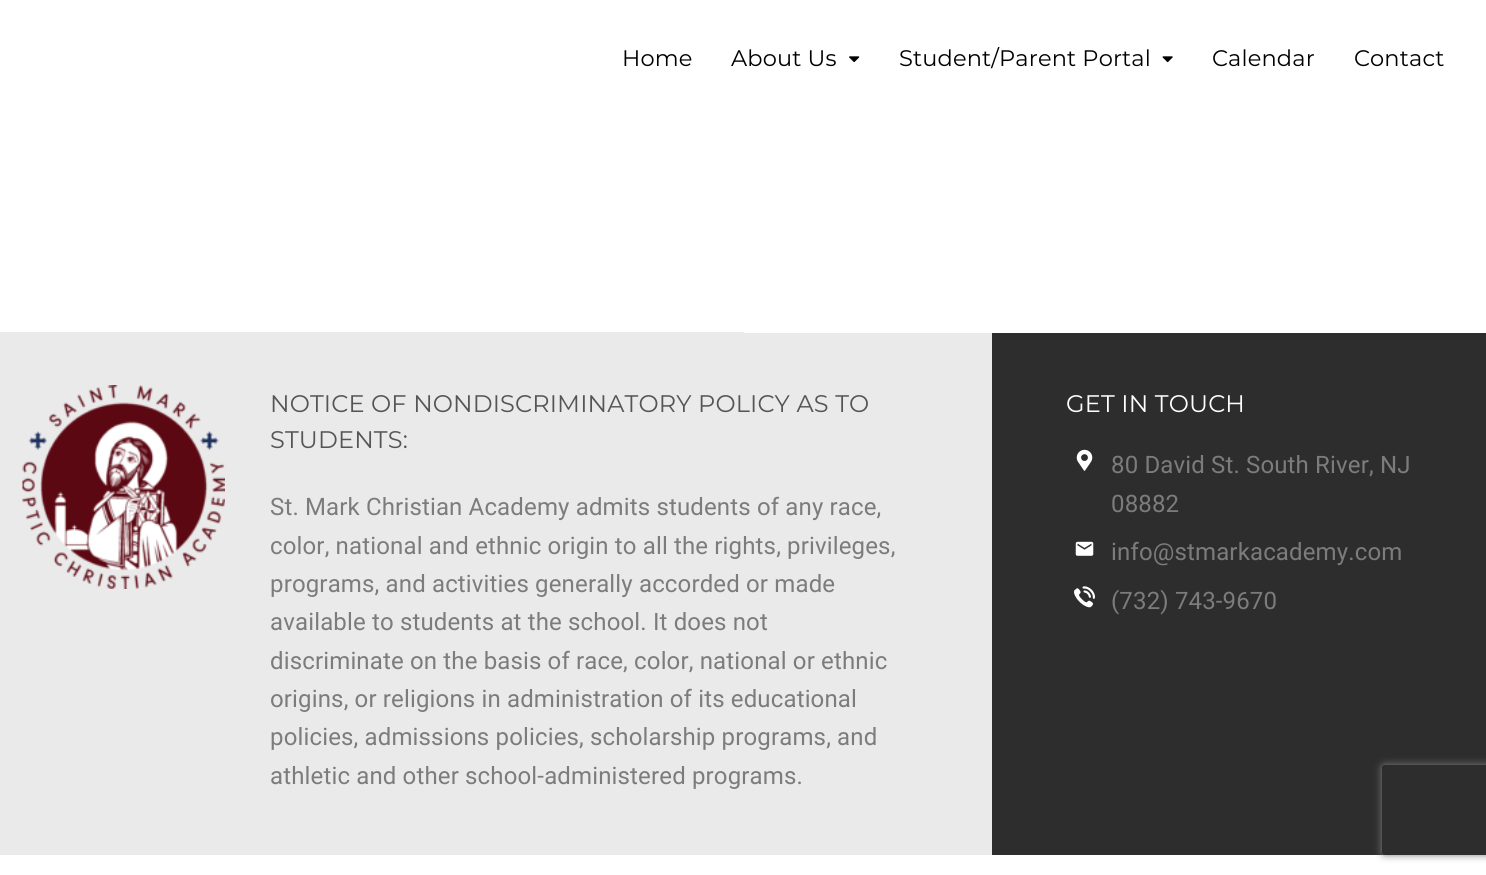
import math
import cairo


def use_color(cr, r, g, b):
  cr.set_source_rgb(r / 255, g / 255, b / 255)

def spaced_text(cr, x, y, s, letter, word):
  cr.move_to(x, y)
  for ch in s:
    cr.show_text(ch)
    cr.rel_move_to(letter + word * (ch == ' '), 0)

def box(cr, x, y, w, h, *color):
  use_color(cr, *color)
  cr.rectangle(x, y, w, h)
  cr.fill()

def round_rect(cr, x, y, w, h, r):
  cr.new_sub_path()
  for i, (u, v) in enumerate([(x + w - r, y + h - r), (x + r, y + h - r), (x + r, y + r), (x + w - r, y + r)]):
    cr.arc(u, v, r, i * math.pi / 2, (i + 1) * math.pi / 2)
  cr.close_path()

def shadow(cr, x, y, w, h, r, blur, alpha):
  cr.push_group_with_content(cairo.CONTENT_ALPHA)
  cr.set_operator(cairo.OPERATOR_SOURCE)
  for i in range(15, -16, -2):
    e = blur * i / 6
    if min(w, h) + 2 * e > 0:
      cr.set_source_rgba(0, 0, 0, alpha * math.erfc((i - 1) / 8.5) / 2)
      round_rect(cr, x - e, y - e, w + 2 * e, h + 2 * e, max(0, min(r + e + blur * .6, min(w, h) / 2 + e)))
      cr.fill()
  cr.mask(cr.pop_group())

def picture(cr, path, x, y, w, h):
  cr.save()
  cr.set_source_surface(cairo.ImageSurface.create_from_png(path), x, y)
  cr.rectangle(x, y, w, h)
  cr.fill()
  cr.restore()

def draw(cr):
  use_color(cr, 255, 255, 255)
  cr.paint()
  picture(cr, "img_01.png", 849, 56, 11, 7)
  picture(cr, "img_02.png", 1162, 56, 11, 7)
  box(cr, 992, 333, 494, 522, 45, 45, 45)
  box(cr, 0, 332, 744, 523, 234, 234, 234)
  picture(cr, "img_03.png", 22, 385, 203, 204)
  box(cr, 744, 333, 248, 522, 234, 234, 234)
  picture(cr, "img_04.png", 1076, 449, 17, 22)
  picture(cr, "img_05.png", 1075, 541, 19, 15)
  picture(cr, "img_06.png", 1074, 586, 21, 22)
  cr.save()
  cr.set_fill_rule(cairo.FILL_RULE_EVEN_ODD)
  cr.new_path()
  cr.move_to(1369, 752)
  cr.line_to(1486, 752)
  cr.line_to(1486, 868)
  cr.line_to(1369, 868)
  cr.close_path()
  cr.move_to(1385, 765)
  cr.line_to(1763, 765)
  cr.curve_to(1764.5, 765, 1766, 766.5, 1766, 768)
  cr.line_to(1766, 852)
  cr.curve_to(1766, 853.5, 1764.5, 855, 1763, 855)
  cr.line_to(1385, 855)
  cr.curve_to(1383.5, 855, 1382, 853.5, 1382, 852)
  cr.line_to(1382, 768)
  cr.curve_to(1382, 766.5, 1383.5, 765, 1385, 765)
  cr.close_path()
  cr.clip()
  use_color(cr, 128, 128, 128)
  shadow(cr, 1382, 765, 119, 90, 3, 4, 1)
  cr.restore()
  cr.select_font_face("Montserrat")
  cr.set_font_size(22.5)
  use_color(cr, 0, 0, 0)
  spaced_text(cr, 622, 66, "Home", 0.15, 0)
  spaced_text(cr, 731, 66, "About Us", 0.15, 0)
  spaced_text(cr, 899, 66, "Student/Parent Portal", 0.15, 0)
  spaced_text(cr, 1212, 66, "Calendar", 0.15, 0)
  spaced_text(cr, 1354, 66, "Contact", 0.15, 0)
  cr.set_font_size(24)
  use_color(cr, 85, 85, 85)
  spaced_text(cr, 270, 412, "NOTICE OF NONDISCRIMINATORY POLICY AS TO", 0.15, 0)
  spaced_text(cr, 270, 448, "STUDENTS:", 0.15, 0)
  cr.select_font_face("Roboto")
  use_color(cr, 124, 124, 124)
  spaced_text(cr, 270, 515, "St. Mark Christian Academy admits students of any race,", 0.15, 0)
  spaced_text(cr, 270, 554, "color, national and ethnic origin to all the rights, privileges,", 0.15, 0)
  spaced_text(cr, 270, 592, "programs, and activities generally accorded or made", 0.15, 0)
  spaced_text(cr, 270, 630, "available to students at the school. It does not", 0.15, 0)
  spaced_text(cr, 270, 669, "discriminate on the basis of race, color, national or ethnic", 0.15, 0)
  spaced_text(cr, 270, 707, "origins, or religions in administration of its educational", 0.15, 0)
  spaced_text(cr, 270, 745, "policies, admissions policies, scholarship programs, and", 0.15, 0)
  spaced_text(cr, 270, 784, "athletic and other school-administered programs.", 0.15, 0)
  cr.select_font_face("Montserrat")
  use_color(cr, 255, 255, 255)
  spaced_text(cr, 1066, 412, "GET IN TOUCH", 0.15, 0)
  cr.select_font_face("Roboto")
  use_color(cr, 124, 124, 124)
  spaced_text(cr, 1111, 473, "80 David St. South River, NJ", 0.15, 0)
  spaced_text(cr, 1111, 512, "08882", 0.15, 0)
  spaced_text(cr, 1111, 560, "info@stmarkacademy.com", 0.15, 0)
  spaced_text(cr, 1111, 609, "(732) 743-9670", 0.15, 0)


surface = cairo.ImageSurface(cairo.FORMAT_RGB24, 1486, 875)
cr = cairo.Context(surface)
options = cairo.FontOptions()
options.set_hint_metrics(cairo.HINT_METRICS_OFF)
options.set_hint_style(cairo.HINT_STYLE_NONE)
cr.set_font_options(options)
cr.set_miter_limit(4)
draw(cr)
surface.write_to_png("out.png")
